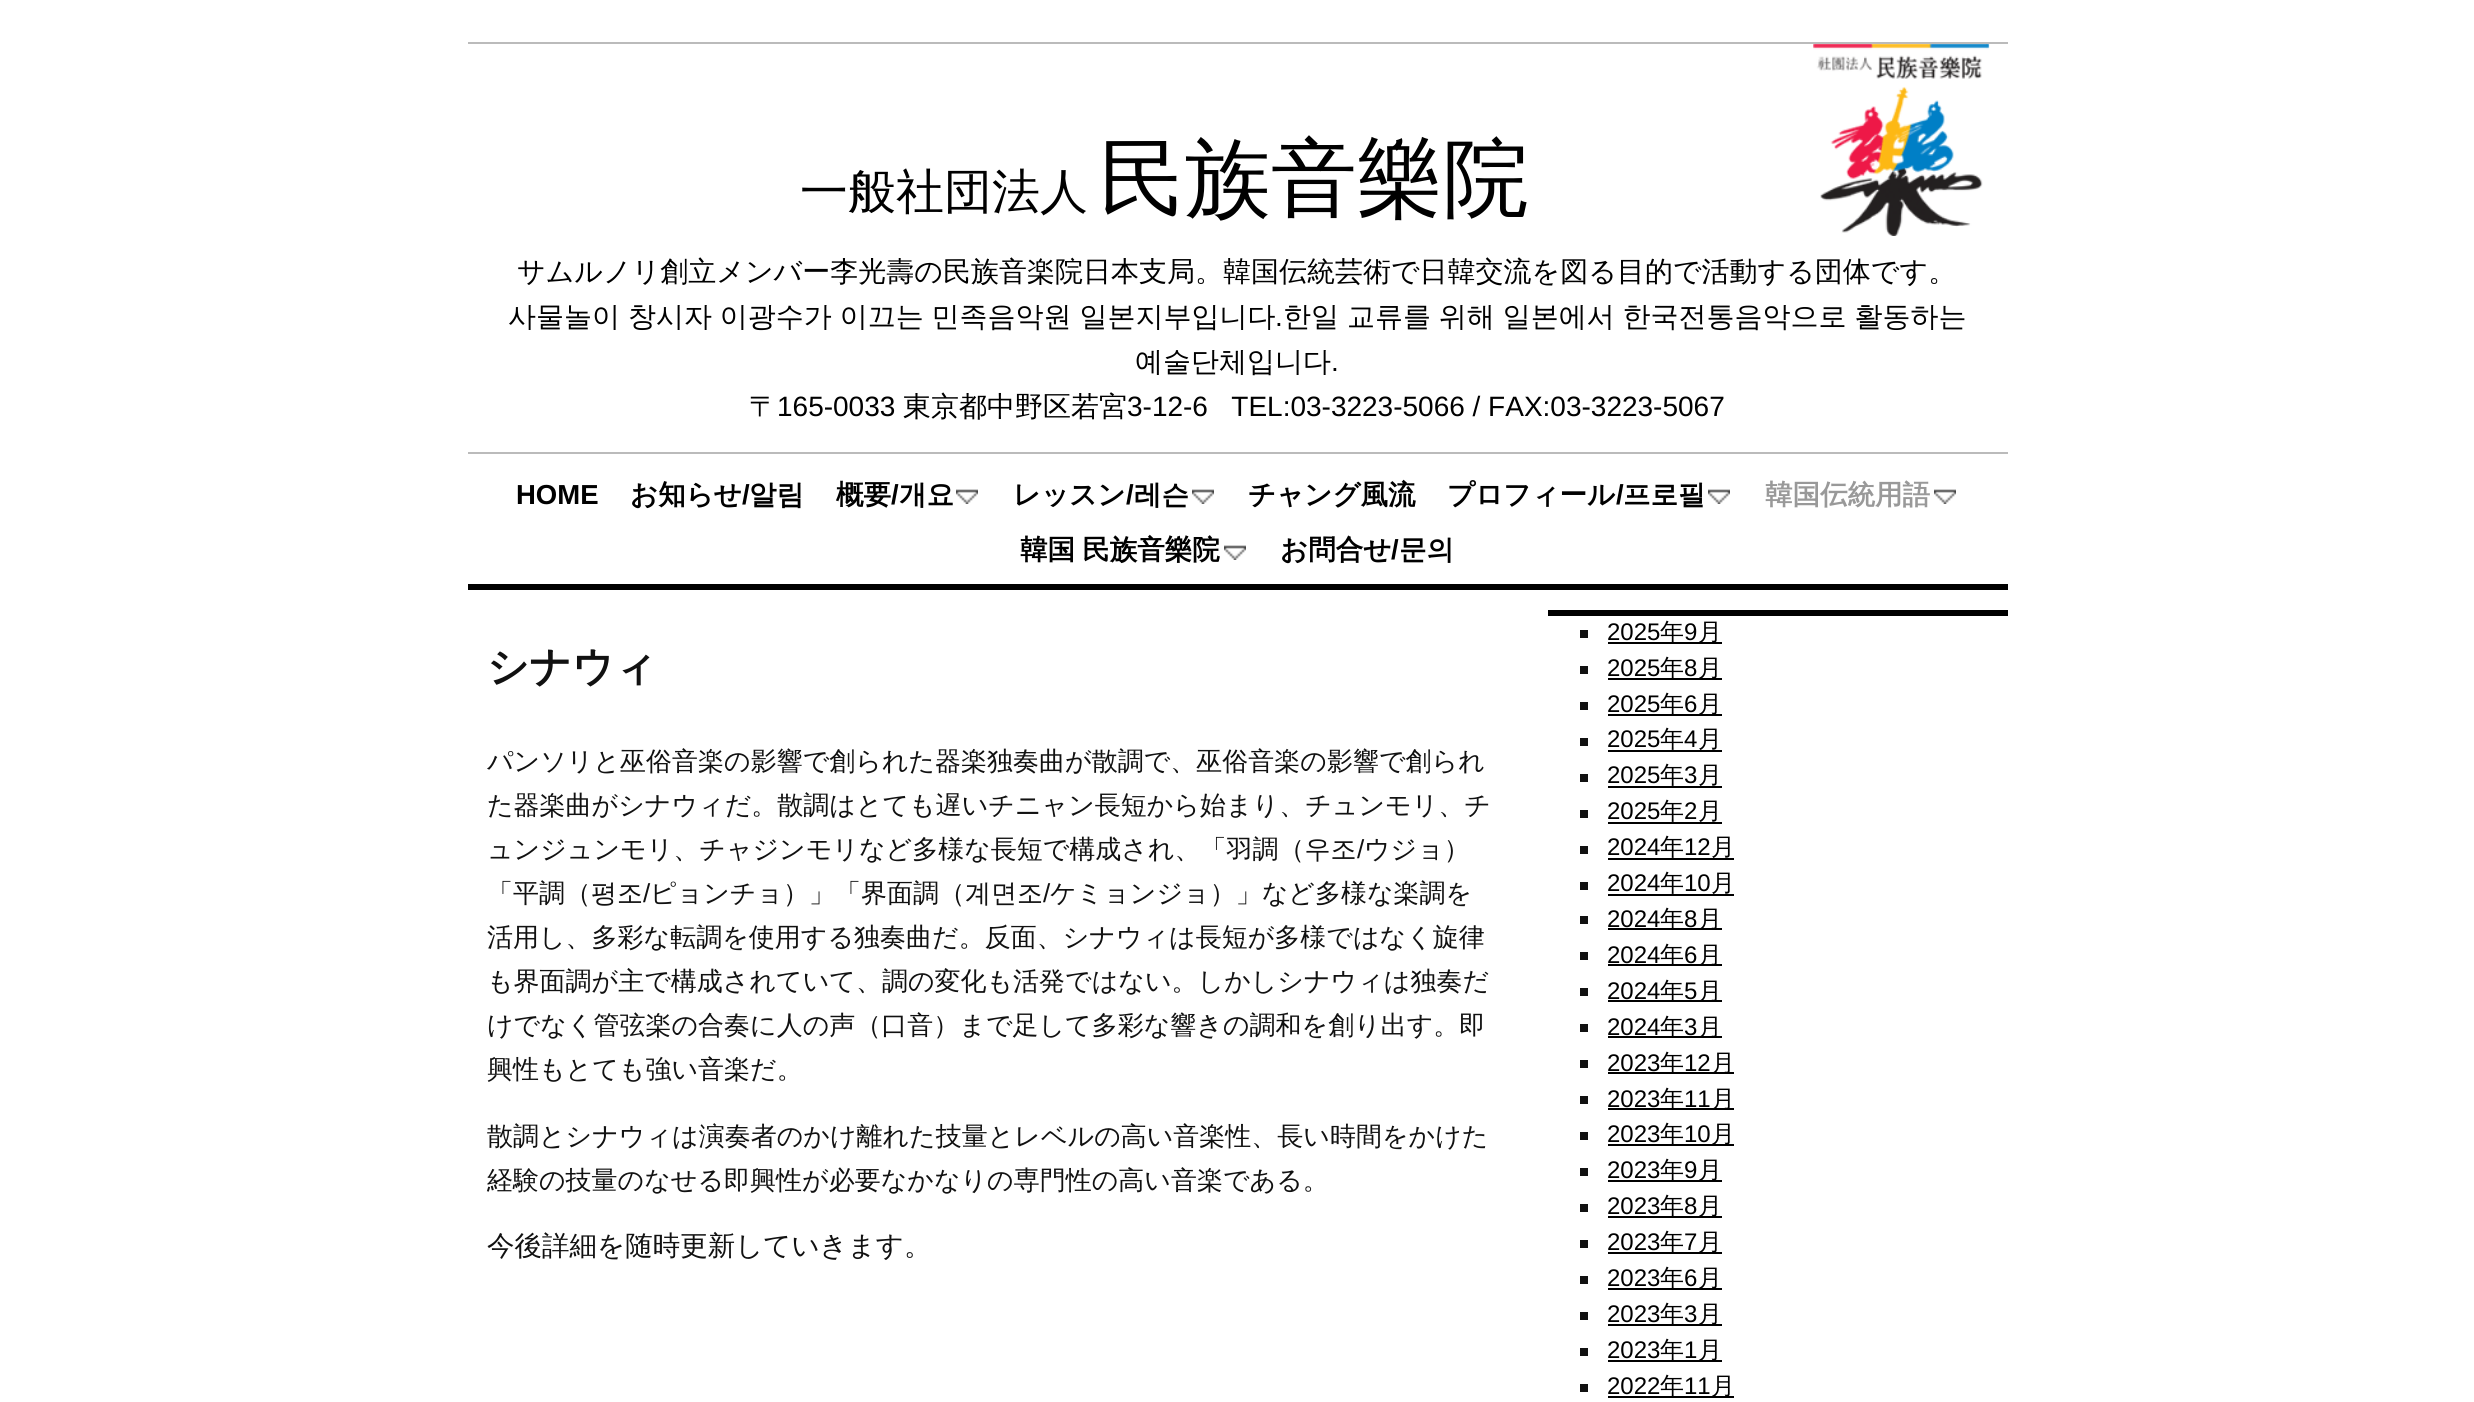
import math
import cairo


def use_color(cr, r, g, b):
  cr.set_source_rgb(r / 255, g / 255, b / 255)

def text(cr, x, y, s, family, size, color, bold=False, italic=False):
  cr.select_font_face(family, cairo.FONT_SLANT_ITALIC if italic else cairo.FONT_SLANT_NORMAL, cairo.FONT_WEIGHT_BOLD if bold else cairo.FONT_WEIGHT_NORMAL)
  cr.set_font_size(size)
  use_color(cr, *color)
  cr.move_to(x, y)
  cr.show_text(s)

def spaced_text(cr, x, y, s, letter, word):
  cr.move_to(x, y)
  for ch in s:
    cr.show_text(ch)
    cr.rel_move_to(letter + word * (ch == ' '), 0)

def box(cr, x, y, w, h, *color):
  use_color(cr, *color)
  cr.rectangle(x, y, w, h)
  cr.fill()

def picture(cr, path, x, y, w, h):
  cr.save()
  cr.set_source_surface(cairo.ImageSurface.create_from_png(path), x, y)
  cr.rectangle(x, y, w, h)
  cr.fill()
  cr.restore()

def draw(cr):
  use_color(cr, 255, 255, 255)
  cr.paint()
  box(cr, 468, 42, 1540, 2, 187, 187, 187)
  box(cr, 468, 452, 1540, 2, 187, 187, 187)
  picture(cr, "img_01.png", 1813, 44, 177, 192)
  box(cr, 468, 584, 1540, 6, 0, 0, 0)
  picture(cr, "img_02.png", 956, 489, 22, 15)
  picture(cr, "img_02.png", 1192, 489, 22, 15)
  picture(cr, "img_02.png", 1708, 489, 22, 15)
  picture(cr, "img_02.png", 1934, 489, 22, 15)
  picture(cr, "img_02.png", 1224, 545, 22, 15)
  box(cr, 1548, 610, 460, 6, 0, 0, 0)
  box(cr, 1580, 630, 8, 8, 17, 17, 17)
  box(cr, 1608, 642, 114, 2, 0, 0, 0)
  box(cr, 1580, 666, 8, 8, 17, 17, 17)
  box(cr, 1608, 678, 114, 2, 0, 0, 0)
  box(cr, 1580, 702, 8, 8, 17, 17, 17)
  box(cr, 1608, 714, 114, 2, 0, 0, 0)
  box(cr, 1580, 738, 8, 8, 17, 17, 17)
  box(cr, 1608, 750, 114, 2, 0, 0, 0)
  box(cr, 1580, 774, 8, 8, 17, 17, 17)
  box(cr, 1608, 786, 114, 2, 0, 0, 0)
  box(cr, 1580, 810, 8, 8, 17, 17, 17)
  box(cr, 1608, 822, 114, 2, 0, 0, 0)
  box(cr, 1580, 846, 8, 8, 17, 17, 17)
  box(cr, 1608, 858, 126, 2, 0, 0, 0)
  box(cr, 1580, 882, 8, 8, 17, 17, 17)
  box(cr, 1608, 894, 126, 2, 0, 0, 0)
  box(cr, 1580, 916, 8, 8, 17, 17, 17)
  box(cr, 1608, 928, 114, 2, 0, 0, 0)
  box(cr, 1580, 952, 8, 8, 17, 17, 17)
  box(cr, 1608, 964, 114, 2, 0, 0, 0)
  box(cr, 1580, 988, 8, 8, 17, 17, 17)
  box(cr, 1608, 1000, 114, 2, 0, 0, 0)
  box(cr, 1580, 1024, 8, 8, 17, 17, 17)
  box(cr, 1608, 1036, 114, 2, 0, 0, 0)
  box(cr, 1580, 1060, 8, 8, 17, 17, 17)
  box(cr, 1608, 1072, 126, 2, 0, 0, 0)
  box(cr, 1580, 1096, 8, 8, 17, 17, 17)
  box(cr, 1608, 1108, 126, 2, 0, 0, 0)
  box(cr, 1580, 1132, 8, 8, 17, 17, 17)
  box(cr, 1608, 1144, 126, 2, 0, 0, 0)
  box(cr, 1580, 1168, 8, 8, 17, 17, 17)
  box(cr, 1608, 1180, 114, 2, 0, 0, 0)
  box(cr, 1580, 1204, 8, 8, 17, 17, 17)
  box(cr, 1608, 1216, 114, 2, 0, 0, 0)
  box(cr, 1580, 1240, 8, 8, 17, 17, 17)
  box(cr, 1608, 1252, 114, 2, 0, 0, 0)
  box(cr, 1580, 1276, 8, 8, 17, 17, 17)
  box(cr, 1608, 1288, 114, 2, 0, 0, 0)
  box(cr, 1580, 1312, 8, 8, 17, 17, 17)
  box(cr, 1608, 1324, 114, 2, 0, 0, 0)
  box(cr, 1580, 1348, 8, 8, 17, 17, 17)
  box(cr, 1608, 1360, 114, 2, 0, 0, 0)
  box(cr, 1580, 1384, 8, 8, 17, 17, 17)
  box(cr, 1608, 1396, 126, 2, 0, 0, 0)
  text(cr, 800, 208, "一般社団法人", "WenQuanYi Zen Hei Medium", 48, (0, 0, 0))
  text(cr, 1099, 208, "民族音樂院", "WenQuanYi Zen Hei Medium", 86, (0, 0, 0))
  text(cr, 517, 281, "サムルノリ創立メンバー李光壽の民族音楽院日本支局。韓国伝統芸術で日韓交流を図る目的で活動する団体です。", "WenQuanYi Zen Hei Medium", 28, (0, 0, 0))
  spaced_text(cr, 508, 326, "사물놀이 창시자 이광수가 이끄는 민족음악원 일본지부입니다", 0, -0.5)
  text(cr, 1275, 326, ".", "Liberation Sans", 28, (0, 0, 0))
  cr.select_font_face("WenQuanYi Zen Hei Medium")
  spaced_text(cr, 1283, 326, "한일 교류를 위해 일본에서 한국전통음악으로 활동하는", 0, -0.5)
  text(cr, 1135, 371, "예술단체입니다", "WenQuanYi Zen Hei Medium", 28, (0, 0, 0))
  text(cr, 1331, 371, ".", "Liberation Sans", 28, (0, 0, 0))
  text(cr, 749, 416, "〒", "WenQuanYi Zen Hei Medium", 28, (0, 0, 0))
  text(cr, 777, 416, "165-0033", "Liberation Sans", 28, (0, 0, 0))
  text(cr, 903, 416, "東京都中野区若宮", "WenQuanYi Zen Hei Medium", 28, (0, 0, 0))
  text(cr, 1127, 416, "3-12-6   TEL:03-3223-5066 / FAX:03-3223-5067", "Liberation Sans", 28, (0, 0, 0))
  text(cr, 516, 504, "HOME", "Liberation Sans", 27.5, (0, 0, 0), bold=True)
  text(cr, 630, 504, "お知らせ", "WenQuanYi Zen Hei", 27.5, (0, 0, 0), bold=True)
  text(cr, 742, 504, "/", "Liberation Sans", 27.5, (0, 0, 0), bold=True)
  text(cr, 749, 504, "알림", "WenQuanYi Zen Hei", 27.5, (0, 0, 0), bold=True)
  text(cr, 836, 504, "概要", "WenQuanYi Zen Hei", 27.5, (0, 0, 0), bold=True)
  text(cr, 891, 504, "/", "Liberation Sans", 27.5, (0, 0, 0), bold=True)
  text(cr, 899, 504, "개요", "WenQuanYi Zen Hei", 27.5, (0, 0, 0), bold=True)
  text(cr, 1013, 504, "レッスン", "WenQuanYi Zen Hei", 27.5, (0, 0, 0), bold=True)
  text(cr, 1126, 504, "/", "Liberation Sans", 27.5, (0, 0, 0), bold=True)
  text(cr, 1134, 504, "레슨", "WenQuanYi Zen Hei", 27.5, (0, 0, 0), bold=True)
  text(cr, 1248, 504, "チャング風流", "WenQuanYi Zen Hei", 27.5, (0, 0, 0), bold=True)
  text(cr, 1447, 504, "プロフィール", "WenQuanYi Zen Hei", 27.5, (0, 0, 0), bold=True)
  text(cr, 1616, 504, "/", "Liberation Sans", 27.5, (0, 0, 0), bold=True)
  text(cr, 1623, 504, "프로필", "WenQuanYi Zen Hei", 27.5, (0, 0, 0), bold=True)
  text(cr, 1765, 504, "韓国伝統用語", "WenQuanYi Zen Hei", 27.5, (153, 153, 153), bold=True)
  use_color(cr, 0, 0, 0)
  spaced_text(cr, 1020, 559, "韓国 民族音樂院", 0, -1)
  text(cr, 1280, 559, "お問合せ", "WenQuanYi Zen Hei", 27.5, (0, 0, 0), bold=True)
  text(cr, 1391, 559, "/", "Liberation Sans", 27.5, (0, 0, 0), bold=True)
  text(cr, 1399, 559, "문의", "WenQuanYi Zen Hei", 27.5, (0, 0, 0), bold=True)
  text(cr, 487, 681, "シナウィ", "WenQuanYi Zen Hei", 41.5, (17, 17, 17), bold=True)
  text(cr, 487, 770, "パンソリと巫俗音楽の影響で創られた器楽独奏曲が散調で、巫俗音楽の影響で創られ", "WenQuanYi Zen Hei Medium", 26, (17, 17, 17))
  text(cr, 487, 814, "た器楽曲がシナウィだ。散調はとても遅いチニャン長短から始まり、チュンモリ、チ", "WenQuanYi Zen Hei Medium", 26, (17, 17, 17))
  text(cr, 487, 858, "ュンジュンモリ、チャジンモリなど多様な長短で構成され、「羽調（우조", "WenQuanYi Zen Hei Medium", 26, (17, 17, 17))
  text(cr, 1357, 858, "/", "Liberation Sans", 26, (17, 17, 17))
  text(cr, 1364, 858, "ウジョ）", "WenQuanYi Zen Hei Medium", 26, (17, 17, 17))
  text(cr, 487, 902, "「平調（평조", "WenQuanYi Zen Hei Medium", 26, (17, 17, 17))
  text(cr, 643, 902, "/", "Liberation Sans", 26, (17, 17, 17))
  text(cr, 650, 902, "ピョンチョ）」「界面調（계면조", "WenQuanYi Zen Hei Medium", 26, (17, 17, 17))
  text(cr, 1043, 902, "/", "Liberation Sans", 26, (17, 17, 17))
  text(cr, 1050, 902, "ケミョンジョ）」など多様な楽調を", "WenQuanYi Zen Hei Medium", 26, (17, 17, 17))
  text(cr, 487, 946, "活用し、多彩な転調を使用する独奏曲だ。反面、シナウィは長短が多様ではなく旋律", "WenQuanYi Zen Hei Medium", 26, (17, 17, 17))
  text(cr, 487, 990, "も界面調が主で構成されていて、調の変化も活発ではない。しかしシナウィは独奏だ", "WenQuanYi Zen Hei Medium", 26, (17, 17, 17))
  text(cr, 487, 1034, "けでなく管弦楽の合奏に人の声（口音）まで足して多彩な響きの調和を創り出す。即", "WenQuanYi Zen Hei Medium", 26, (17, 17, 17))
  text(cr, 487, 1078, "興性もとても強い音楽だ。", "WenQuanYi Zen Hei Medium", 26, (17, 17, 17))
  text(cr, 487, 1145, "散調とシナウィは演奏者のかけ離れた技量とレベルの高い音楽性、長い時間をかけた", "WenQuanYi Zen Hei Medium", 26, (17, 17, 17))
  text(cr, 487, 1189, "経験の技量のなせる即興性が必要なかなりの専門性の高い音楽である。", "WenQuanYi Zen Hei Medium", 26, (17, 17, 17))
  text(cr, 487, 1255, "今後詳細を随時更新していきます。", "WenQuanYi Zen Hei Medium", 27.5, (17, 17, 17))
  text(cr, 1607, 640, "2025", "Liberation Sans", 24, (0, 0, 0))
  text(cr, 1660, 640, "年", "WenQuanYi Zen Hei Medium", 24, (0, 0, 0))
  text(cr, 1684, 640, "9", "Liberation Sans", 24, (0, 0, 0))
  text(cr, 1698, 640, "月", "WenQuanYi Zen Hei Medium", 24, (0, 0, 0))
  text(cr, 1607, 676, "2025", "Liberation Sans", 24, (0, 0, 0))
  text(cr, 1660, 676, "年", "WenQuanYi Zen Hei Medium", 24, (0, 0, 0))
  text(cr, 1684, 676, "8", "Liberation Sans", 24, (0, 0, 0))
  text(cr, 1698, 676, "月", "WenQuanYi Zen Hei Medium", 24, (0, 0, 0))
  text(cr, 1607, 712, "2025", "Liberation Sans", 24, (0, 0, 0))
  text(cr, 1660, 712, "年", "WenQuanYi Zen Hei Medium", 24, (0, 0, 0))
  text(cr, 1684, 712, "6", "Liberation Sans", 24, (0, 0, 0))
  text(cr, 1698, 712, "月", "WenQuanYi Zen Hei Medium", 24, (0, 0, 0))
  text(cr, 1607, 747, "2025", "Liberation Sans", 24, (0, 0, 0))
  text(cr, 1660, 747, "年", "WenQuanYi Zen Hei Medium", 24, (0, 0, 0))
  text(cr, 1684, 747, "4", "Liberation Sans", 24, (0, 0, 0))
  text(cr, 1698, 747, "月", "WenQuanYi Zen Hei Medium", 24, (0, 0, 0))
  text(cr, 1607, 783, "2025", "Liberation Sans", 24, (0, 0, 0))
  text(cr, 1660, 783, "年", "WenQuanYi Zen Hei Medium", 24, (0, 0, 0))
  text(cr, 1684, 783, "3", "Liberation Sans", 24, (0, 0, 0))
  text(cr, 1698, 783, "月", "WenQuanYi Zen Hei Medium", 24, (0, 0, 0))
  text(cr, 1607, 819, "2025", "Liberation Sans", 24, (0, 0, 0))
  text(cr, 1660, 819, "年", "WenQuanYi Zen Hei Medium", 24, (0, 0, 0))
  text(cr, 1684, 819, "2", "Liberation Sans", 24, (0, 0, 0))
  text(cr, 1698, 819, "月", "WenQuanYi Zen Hei Medium", 24, (0, 0, 0))
  text(cr, 1607, 855, "2024", "Liberation Sans", 24, (0, 0, 0))
  text(cr, 1660, 855, "年", "WenQuanYi Zen Hei Medium", 24, (0, 0, 0))
  text(cr, 1684, 855, "12", "Liberation Sans", 24, (0, 0, 0))
  text(cr, 1711, 855, "月", "WenQuanYi Zen Hei Medium", 24, (0, 0, 0))
  text(cr, 1607, 891, "2024", "Liberation Sans", 24, (0, 0, 0))
  text(cr, 1660, 891, "年", "WenQuanYi Zen Hei Medium", 24, (0, 0, 0))
  text(cr, 1684, 891, "10", "Liberation Sans", 24, (0, 0, 0))
  text(cr, 1711, 891, "月", "WenQuanYi Zen Hei Medium", 24, (0, 0, 0))
  text(cr, 1607, 927, "2024", "Liberation Sans", 24, (0, 0, 0))
  text(cr, 1660, 927, "年", "WenQuanYi Zen Hei Medium", 24, (0, 0, 0))
  text(cr, 1684, 927, "8", "Liberation Sans", 24, (0, 0, 0))
  text(cr, 1698, 927, "月", "WenQuanYi Zen Hei Medium", 24, (0, 0, 0))
  text(cr, 1607, 963, "2024", "Liberation Sans", 24, (0, 0, 0))
  text(cr, 1660, 963, "年", "WenQuanYi Zen Hei Medium", 24, (0, 0, 0))
  text(cr, 1684, 963, "6", "Liberation Sans", 24, (0, 0, 0))
  text(cr, 1698, 963, "月", "WenQuanYi Zen Hei Medium", 24, (0, 0, 0))
  text(cr, 1607, 999, "2024", "Liberation Sans", 24, (0, 0, 0))
  text(cr, 1660, 999, "年", "WenQuanYi Zen Hei Medium", 24, (0, 0, 0))
  text(cr, 1684, 999, "5", "Liberation Sans", 24, (0, 0, 0))
  text(cr, 1698, 999, "月", "WenQuanYi Zen Hei Medium", 24, (0, 0, 0))
  text(cr, 1607, 1035, "2024", "Liberation Sans", 24, (0, 0, 0))
  text(cr, 1660, 1035, "年", "WenQuanYi Zen Hei Medium", 24, (0, 0, 0))
  text(cr, 1684, 1035, "3", "Liberation Sans", 24, (0, 0, 0))
  text(cr, 1698, 1035, "月", "WenQuanYi Zen Hei Medium", 24, (0, 0, 0))
  text(cr, 1607, 1071, "2023", "Liberation Sans", 24, (0, 0, 0))
  text(cr, 1660, 1071, "年", "WenQuanYi Zen Hei Medium", 24, (0, 0, 0))
  text(cr, 1684, 1071, "12", "Liberation Sans", 24, (0, 0, 0))
  text(cr, 1711, 1071, "月", "WenQuanYi Zen Hei Medium", 24, (0, 0, 0))
  text(cr, 1607, 1107, "2023", "Liberation Sans", 24, (0, 0, 0))
  text(cr, 1660, 1107, "年", "WenQuanYi Zen Hei Medium", 24, (0, 0, 0))
  text(cr, 1684, 1107, "11", "Liberation Sans", 24, (0, 0, 0))
  text(cr, 1711, 1107, "月", "WenQuanYi Zen Hei Medium", 24, (0, 0, 0))
  text(cr, 1607, 1142, "2023", "Liberation Sans", 24, (0, 0, 0))
  text(cr, 1660, 1142, "年", "WenQuanYi Zen Hei Medium", 24, (0, 0, 0))
  text(cr, 1684, 1142, "10", "Liberation Sans", 24, (0, 0, 0))
  text(cr, 1711, 1142, "月", "WenQuanYi Zen Hei Medium", 24, (0, 0, 0))
  text(cr, 1607, 1178, "2023", "Liberation Sans", 24, (0, 0, 0))
  text(cr, 1660, 1178, "年", "WenQuanYi Zen Hei Medium", 24, (0, 0, 0))
  text(cr, 1684, 1178, "9", "Liberation Sans", 24, (0, 0, 0))
  text(cr, 1698, 1178, "月", "WenQuanYi Zen Hei Medium", 24, (0, 0, 0))
  text(cr, 1607, 1214, "2023", "Liberation Sans", 24, (0, 0, 0))
  text(cr, 1660, 1214, "年", "WenQuanYi Zen Hei Medium", 24, (0, 0, 0))
  text(cr, 1684, 1214, "8", "Liberation Sans", 24, (0, 0, 0))
  text(cr, 1698, 1214, "月", "WenQuanYi Zen Hei Medium", 24, (0, 0, 0))
  text(cr, 1607, 1250, "2023", "Liberation Sans", 24, (0, 0, 0))
  text(cr, 1660, 1250, "年", "WenQuanYi Zen Hei Medium", 24, (0, 0, 0))
  text(cr, 1684, 1250, "7", "Liberation Sans", 24, (0, 0, 0))
  text(cr, 1698, 1250, "月", "WenQuanYi Zen Hei Medium", 24, (0, 0, 0))
  text(cr, 1607, 1286, "2023", "Liberation Sans", 24, (0, 0, 0))
  text(cr, 1660, 1286, "年", "WenQuanYi Zen Hei Medium", 24, (0, 0, 0))
  text(cr, 1684, 1286, "6", "Liberation Sans", 24, (0, 0, 0))
  text(cr, 1698, 1286, "月", "WenQuanYi Zen Hei Medium", 24, (0, 0, 0))
  text(cr, 1607, 1322, "2023", "Liberation Sans", 24, (0, 0, 0))
  text(cr, 1660, 1322, "年", "WenQuanYi Zen Hei Medium", 24, (0, 0, 0))
  text(cr, 1684, 1322, "3", "Liberation Sans", 24, (0, 0, 0))
  text(cr, 1698, 1322, "月", "WenQuanYi Zen Hei Medium", 24, (0, 0, 0))
  text(cr, 1607, 1358, "2023", "Liberation Sans", 24, (0, 0, 0))
  text(cr, 1660, 1358, "年", "WenQuanYi Zen Hei Medium", 24, (0, 0, 0))
  text(cr, 1684, 1358, "1", "Liberation Sans", 24, (0, 0, 0))
  text(cr, 1698, 1358, "月", "WenQuanYi Zen Hei Medium", 24, (0, 0, 0))
  text(cr, 1607, 1394, "2022", "Liberation Sans", 24, (0, 0, 0))
  text(cr, 1660, 1394, "年", "WenQuanYi Zen Hei Medium", 24, (0, 0, 0))
  text(cr, 1684, 1394, "11", "Liberation Sans", 24, (0, 0, 0))
  text(cr, 1711, 1394, "月", "WenQuanYi Zen Hei Medium", 24, (0, 0, 0))


surface = cairo.ImageSurface(cairo.FORMAT_RGB24, 2474, 1402)
cr = cairo.Context(surface)
options = cairo.FontOptions()
options.set_hint_metrics(cairo.HINT_METRICS_OFF)
options.set_hint_style(cairo.HINT_STYLE_NONE)
cr.set_font_options(options)
cr.set_miter_limit(4)
draw(cr)
surface.write_to_png("out.png")
